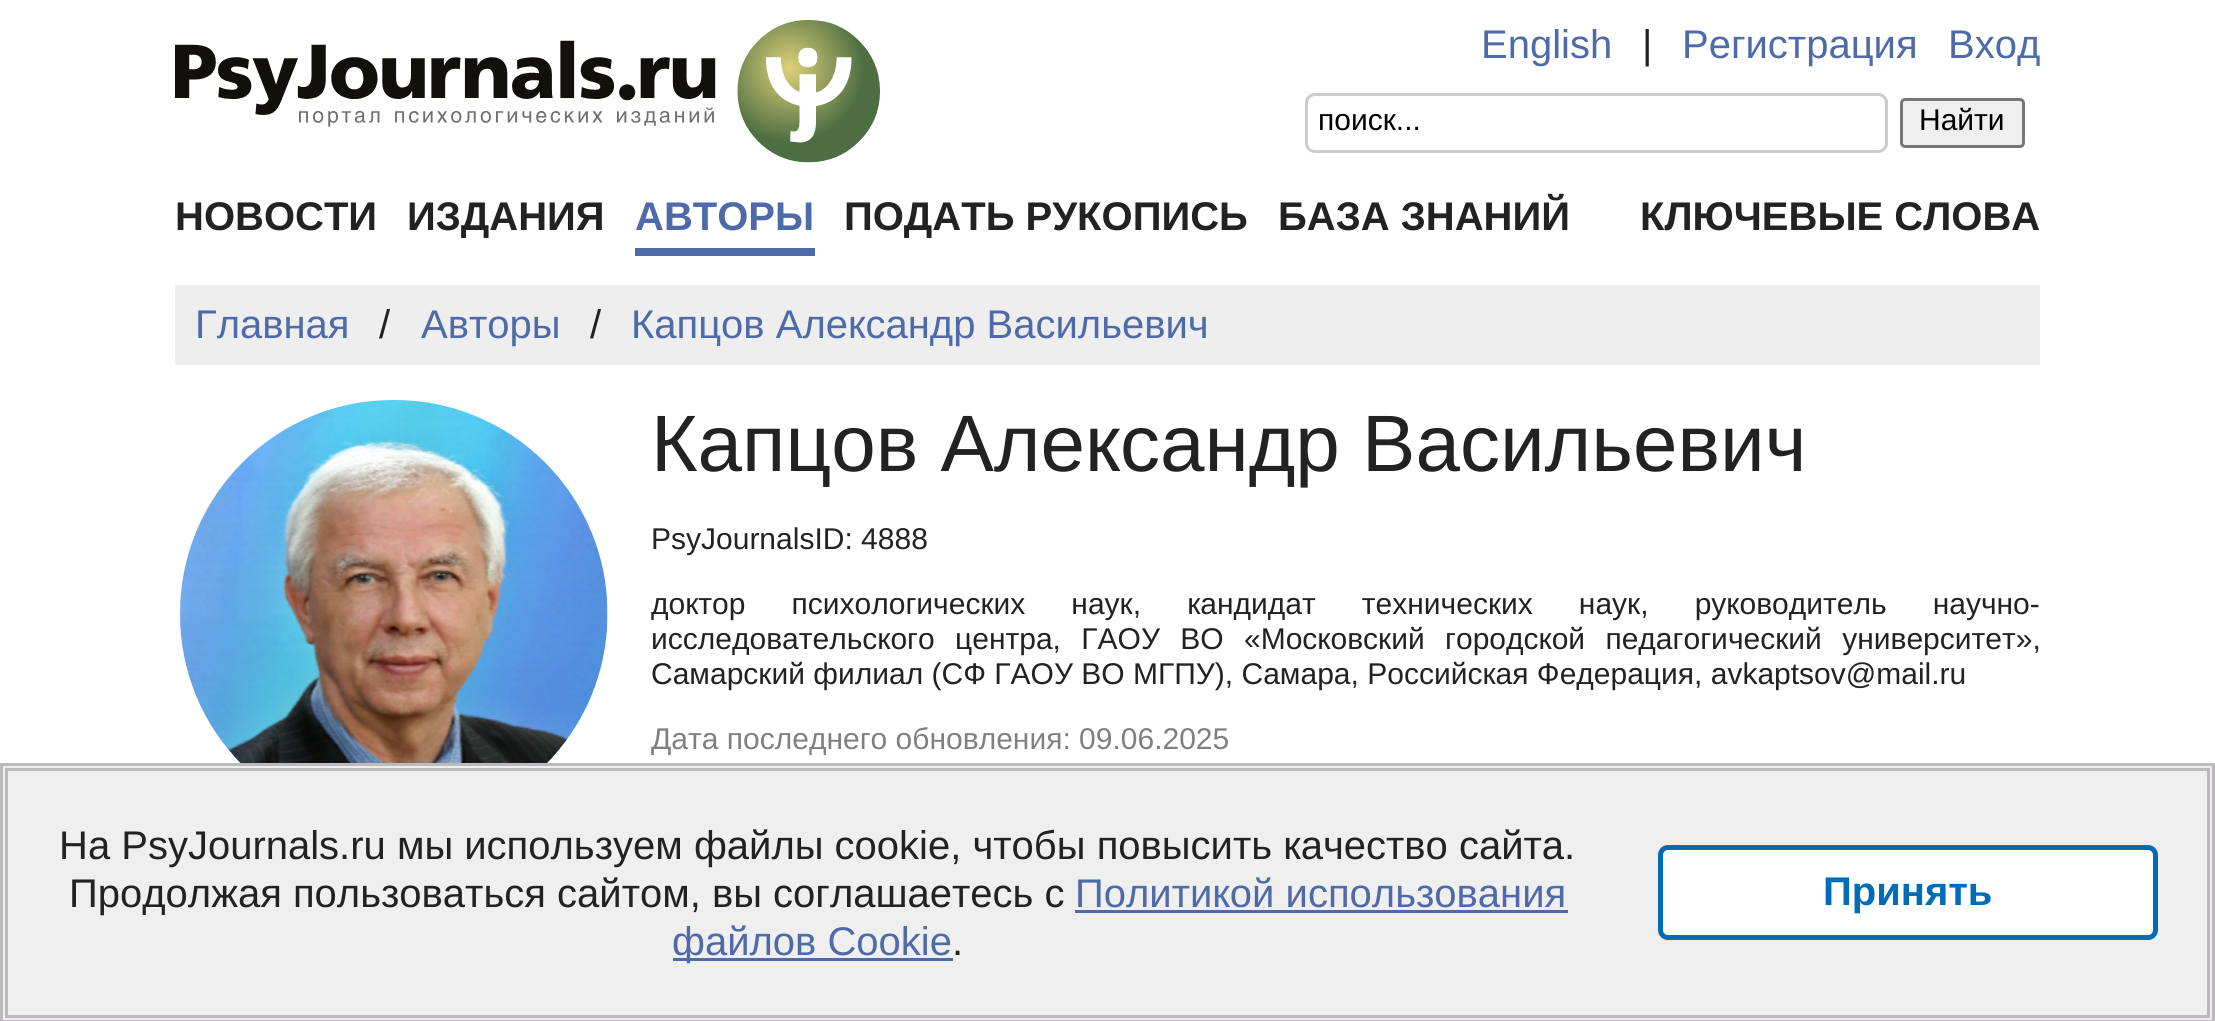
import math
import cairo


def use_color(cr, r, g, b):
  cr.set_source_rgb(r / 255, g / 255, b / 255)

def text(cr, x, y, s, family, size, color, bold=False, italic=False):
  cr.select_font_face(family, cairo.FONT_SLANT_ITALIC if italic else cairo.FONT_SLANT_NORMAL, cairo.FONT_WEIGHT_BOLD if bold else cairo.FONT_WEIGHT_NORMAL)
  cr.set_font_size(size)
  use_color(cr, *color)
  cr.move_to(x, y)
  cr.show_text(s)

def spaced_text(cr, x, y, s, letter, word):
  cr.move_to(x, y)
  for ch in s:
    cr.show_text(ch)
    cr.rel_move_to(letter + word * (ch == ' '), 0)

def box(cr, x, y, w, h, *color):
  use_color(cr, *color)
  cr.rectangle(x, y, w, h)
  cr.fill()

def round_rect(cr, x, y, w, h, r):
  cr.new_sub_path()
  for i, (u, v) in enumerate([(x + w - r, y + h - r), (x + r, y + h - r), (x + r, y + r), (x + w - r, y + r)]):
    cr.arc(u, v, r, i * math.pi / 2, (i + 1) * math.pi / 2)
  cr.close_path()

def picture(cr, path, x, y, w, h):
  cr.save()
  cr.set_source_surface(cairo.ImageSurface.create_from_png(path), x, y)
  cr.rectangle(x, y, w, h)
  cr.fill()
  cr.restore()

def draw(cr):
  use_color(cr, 255, 255, 255)
  cr.paint()
  picture(cr, "img_01.png", 175, 20, 705, 143)
  round_rect(cr, 1306.5, 94.5, 580, 57, 8.5)
  use_color(cr, 204, 204, 204)
  cr.set_line_width(3)
  cr.stroke()
  use_color(cr, 239, 239, 239)
  round_rect(cr, 1901.5, 99.5, 122, 47, 3.5)
  cr.fill_preserve()
  use_color(cr, 118, 118, 118)
  cr.stroke()
  box(cr, 635, 248, 180, 8, 78, 106, 169)
  box(cr, 175, 285, 1865, 80, 238, 238, 238)
  picture(cr, "img_02.png", 180, 400, 428, 363)
  use_color(cr, 239, 239, 239)
  cr.rectangle(1.5, 764.5, 2212, 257)
  cr.fill_preserve()
  use_color(cr, 189, 186, 189)
  cr.stroke()
  cr.rectangle(6.5, 769.5, 2202, 247)
  cr.stroke()
  box(cr, 1075, 910, 493, 3, 78, 106, 169)
  box(cr, 673, 958, 280, 3, 78, 106, 169)
  use_color(cr, 255, 255, 255)
  round_rect(cr, 1660.5, 847.5, 495, 90, 7.5)
  cr.fill_preserve()
  use_color(cr, 0, 108, 183)
  cr.set_line_width(5)
  cr.stroke()
  text(cr, 1481, 58, "English", "Liberation Sans", 40, (78, 106, 169))
  text(cr, 1642, 58, "|", "Liberation Sans", 40, (34, 34, 34))
  text(cr, 1682, 58, "Регистрация", "Liberation Sans", 40, (78, 106, 169))
  text(cr, 1948, 58, "Вход", "Liberation Sans", 40, (78, 106, 169))
  text(cr, 1318, 130, "поиск...", "Liberation Sans", 30, (0, 0, 0))
  text(cr, 1919, 130, "Найти", "Liberation Sans", 30, (0, 0, 0))
  text(cr, 175, 230, "НОВОСТИ", "Liberation Sans", 40, (34, 34, 34), bold=True)
  text(cr, 407, 230, "ИЗДАНИЯ", "Liberation Sans", 40, (34, 34, 34), bold=True)
  text(cr, 635, 230, "АВТОРЫ", "Liberation Sans", 40, (78, 106, 169), bold=True)
  text(cr, 844, 230, "ПОДАТЬ РУКОПИСЬ", "Liberation Sans", 40, (34, 34, 34), bold=True)
  text(cr, 1278, 230, "БАЗА ЗНАНИЙ", "Liberation Sans", 40, (34, 34, 34), bold=True)
  text(cr, 1640, 230, "КЛЮЧЕВЫЕ СЛОВА", "Liberation Sans", 40, (34, 34, 34), bold=True)
  text(cr, 195, 338, "Главная", "Liberation Sans", 40, (78, 106, 169))
  text(cr, 379, 338, "/", "Liberation Sans", 40, (34, 34, 34))
  text(cr, 421, 338, "Авторы", "Liberation Sans", 40, (78, 106, 169))
  text(cr, 590, 338, "/", "Liberation Sans", 40, (34, 34, 34))
  text(cr, 631, 338, "Капцов Александр Васильевич", "Liberation Sans", 40, (78, 106, 169))
  text(cr, 651, 471, "Капцов Александр Васильевич", "Liberation Sans", 80, (34, 34, 34))
  text(cr, 651, 549, "PsyJournalsID: 4888", "Liberation Sans", 30, (34, 34, 34))
  spaced_text(cr, 651, 614, "доктор психологических наук, кандидат технических наук, руководитель научно-", 0, 37.75)
  spaced_text(cr, 651, 649, "исследовательского центра, ГАОУ ВО «Московский городской педагогический университет»,", 0, 12)
  text(cr, 651, 684, "Самарский филиал (СФ ГАОУ ВО МГПУ), Самара, Российская Федерация, avkaptsov@mail.ru", "Liberation Sans", 30, (34, 34, 34))
  text(cr, 651, 749, "Дата последнего обновления: 09.06.2025", "Liberation Sans", 30, (128, 128, 128))
  text(cr, 59, 859, "На PsyJournals.ru мы используем файлы cookie, чтобы повысить качество сайта.", "Liberation Sans", 40, (34, 34, 34))
  text(cr, 69, 907, "Продолжая пользоваться сайтом, вы соглашаетесь с", "Liberation Sans", 40, (34, 34, 34))
  text(cr, 1075, 907, "Политикой использования", "Liberation Sans", 40, (78, 106, 169))
  text(cr, 672, 955, "файлов Cookie", "Liberation Sans", 40, (78, 106, 169))
  text(cr, 952, 955, ".", "Liberation Sans", 40, (34, 34, 34))
  text(cr, 1823, 905, "Принять", "Liberation Sans", 40, (0, 108, 183), bold=True)


surface = cairo.ImageSurface(cairo.FORMAT_RGB24, 2215, 1021)
cr = cairo.Context(surface)
options = cairo.FontOptions()
options.set_hint_metrics(cairo.HINT_METRICS_OFF)
options.set_hint_style(cairo.HINT_STYLE_NONE)
cr.set_font_options(options)
cr.set_miter_limit(4)
draw(cr)
surface.write_to_png("out.png")
